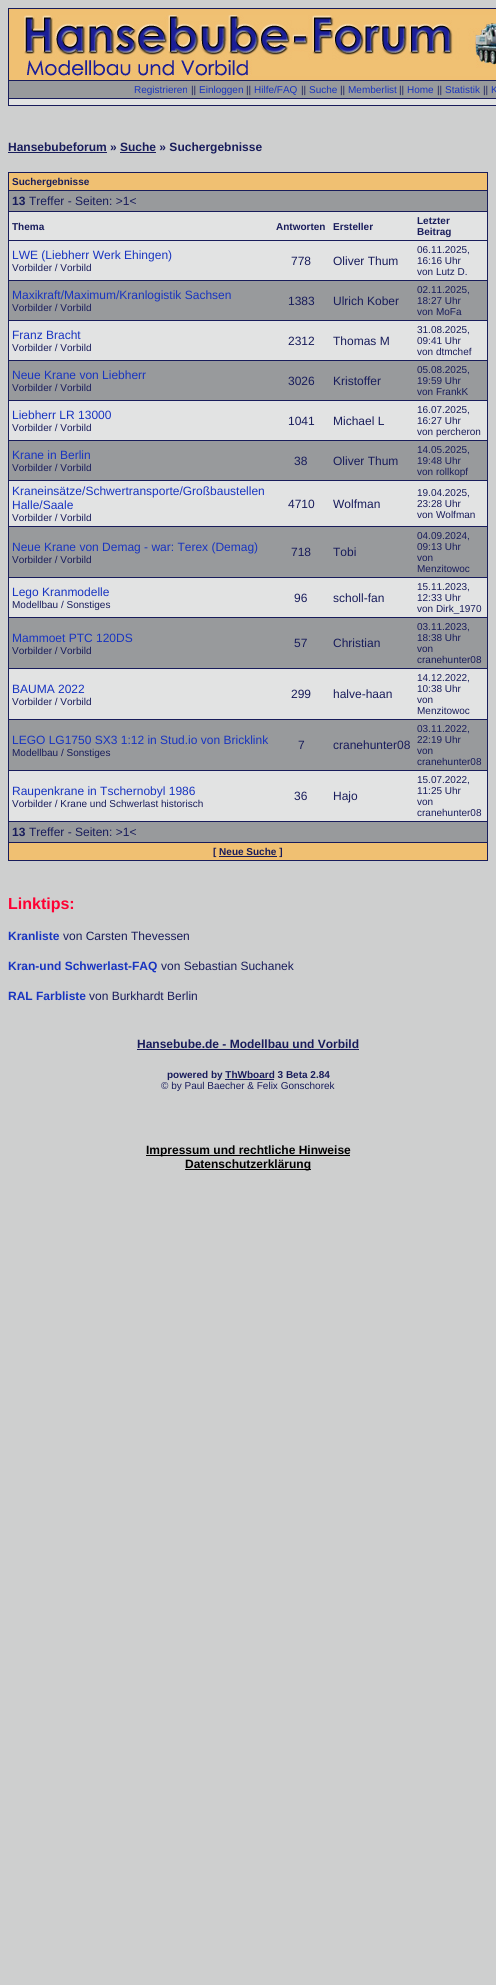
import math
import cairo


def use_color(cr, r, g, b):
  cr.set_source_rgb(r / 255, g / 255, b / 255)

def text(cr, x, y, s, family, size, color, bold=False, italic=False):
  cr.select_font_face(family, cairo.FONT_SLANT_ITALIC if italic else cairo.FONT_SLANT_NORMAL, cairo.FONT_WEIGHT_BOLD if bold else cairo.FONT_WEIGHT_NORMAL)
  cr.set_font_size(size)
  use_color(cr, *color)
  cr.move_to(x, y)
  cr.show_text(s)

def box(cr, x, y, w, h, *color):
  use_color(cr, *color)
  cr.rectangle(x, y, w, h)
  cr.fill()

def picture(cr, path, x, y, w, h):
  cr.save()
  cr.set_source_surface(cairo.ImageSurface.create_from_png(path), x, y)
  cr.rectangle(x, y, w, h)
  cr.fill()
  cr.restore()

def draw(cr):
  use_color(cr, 206, 207, 207)
  cr.paint()
  box(cr, 8, 8, 488, 98, 24, 28, 91)
  box(cr, 9, 9, 487, 71, 240, 192, 114)
  picture(cr, "img_01.png", 24, 15, 472, 61)
  box(cr, 9, 81, 487, 17, 152, 154, 156)
  box(cr, 9, 99, 487, 6, 226, 227, 227)
  box(cr, 8, 152, 99, 1, 24, 28, 91)
  box(cr, 120, 152, 36, 1, 24, 28, 91)
  box(cr, 8, 172, 480, 689, 24, 28, 91)
  box(cr, 9, 173, 478, 17, 240, 192, 114)
  box(cr, 9, 191, 478, 20, 152, 154, 156)
  box(cr, 9, 212, 478, 28, 226, 227, 227)
  box(cr, 9, 241, 478, 39, 226, 227, 227)
  box(cr, 9, 281, 478, 39, 152, 154, 156)
  box(cr, 9, 321, 478, 39, 226, 227, 227)
  box(cr, 9, 361, 478, 39, 152, 154, 156)
  box(cr, 9, 401, 478, 39, 226, 227, 227)
  box(cr, 9, 441, 478, 39, 152, 154, 156)
  box(cr, 9, 481, 478, 45, 226, 227, 227)
  box(cr, 9, 527, 478, 50, 152, 154, 156)
  box(cr, 9, 578, 478, 39, 226, 227, 227)
  box(cr, 9, 618, 478, 50, 152, 154, 156)
  box(cr, 9, 669, 478, 50, 226, 227, 227)
  box(cr, 9, 720, 478, 50, 152, 154, 156)
  box(cr, 9, 771, 478, 50, 226, 227, 227)
  box(cr, 9, 822, 478, 20, 152, 154, 156)
  box(cr, 9, 843, 478, 17, 240, 192, 114)
  box(cr, 219, 856, 58, 1, 24, 28, 91)
  box(cr, 137, 1049, 222, 1, 24, 28, 91)
  box(cr, 225, 1079, 49, 1, 24, 28, 91)
  box(cr, 146, 1155, 204, 1, 0, 0, 0)
  box(cr, 185, 1169, 126, 1, 0, 0, 0)
  text(cr, 134, 93, "Registrieren", "Liberation Sans", 10, (24, 52, 192))
  text(cr, 191, 93, "||", "Liberation Sans", 10, (24, 28, 91))
  text(cr, 199, 93, "Einloggen", "Liberation Sans", 10, (24, 52, 192))
  text(cr, 246, 93, "||", "Liberation Sans", 10, (24, 28, 91))
  text(cr, 254, 93, "Hilfe/FAQ", "Liberation Sans", 10, (24, 52, 192))
  text(cr, 301, 93, "||", "Liberation Sans", 10, (24, 28, 91))
  text(cr, 309, 93, "Suche", "Liberation Sans", 10, (24, 52, 192))
  text(cr, 340, 93, "||", "Liberation Sans", 10, (24, 28, 91))
  text(cr, 348, 93, "Memberlist", "Liberation Sans", 10, (24, 52, 192))
  text(cr, 399, 93, "||", "Liberation Sans", 10, (24, 28, 91))
  text(cr, 407, 93, "Home", "Liberation Sans", 10, (24, 52, 192))
  text(cr, 437, 93, "||", "Liberation Sans", 10, (24, 28, 91))
  text(cr, 445, 93, "Statistik", "Liberation Sans", 10, (24, 52, 192))
  text(cr, 483, 93, "||", "Liberation Sans", 10, (24, 28, 91))
  text(cr, 491, 93, "K", "Liberation Sans", 10, (24, 52, 192))
  text(cr, 8, 151, "Hansebubeforum » Suche » Suchergebnisse", "Liberation Sans", 12, (24, 28, 91), bold=True)
  text(cr, 12, 185, "Suchergebnisse", "Liberation Sans", 10, (24, 28, 91), bold=True)
  text(cr, 12, 205, "13", "Liberation Sans", 12, (24, 28, 91), bold=True)
  text(cr, 29, 205, "Treffer - Seiten: >1<", "Liberation Sans", 12, (24, 28, 91))
  text(cr, 12, 230, "Thema", "Liberation Sans", 10, (24, 28, 91), bold=True)
  text(cr, 276, 230, "Antworten", "Liberation Sans", 10, (24, 28, 91), bold=True)
  text(cr, 333, 230, "Ersteller", "Liberation Sans", 10, (24, 28, 91), bold=True)
  text(cr, 417, 224, "Letzter", "Liberation Sans", 10, (24, 28, 91), bold=True)
  text(cr, 417, 235, "Beitrag", "Liberation Sans", 10, (24, 28, 91), bold=True)
  text(cr, 12, 259, "LWE (Liebherr Werk Ehingen)", "Liberation Sans", 12, (24, 52, 192))
  text(cr, 12, 271, "Vorbilder / Vorbild", "Liberation Sans", 10, (24, 28, 91))
  text(cr, 291, 265, "778", "Liberation Sans", 12, (24, 28, 91))
  text(cr, 333, 265, "Oliver Thum", "Liberation Sans", 12, (24, 28, 91))
  text(cr, 417, 253, "06.11.2025,", "Liberation Sans", 10, (24, 28, 91))
  text(cr, 417, 264, "16:16 Uhr", "Liberation Sans", 10, (24, 28, 91))
  text(cr, 417, 275, "von Lutz D.", "Liberation Sans", 10, (24, 28, 91))
  text(cr, 12, 299, "Maxikraft/Maximum/Kranlogistik Sachsen", "Liberation Sans", 12, (24, 52, 192))
  text(cr, 12, 311, "Vorbilder / Vorbild", "Liberation Sans", 10, (24, 28, 91))
  text(cr, 288, 305, "1383", "Liberation Sans", 12, (24, 28, 91))
  text(cr, 333, 305, "Ulrich Kober", "Liberation Sans", 12, (24, 28, 91))
  text(cr, 417, 293, "02.11.2025,", "Liberation Sans", 10, (24, 28, 91))
  text(cr, 417, 304, "18:27 Uhr", "Liberation Sans", 10, (24, 28, 91))
  text(cr, 417, 315, "von MoFa", "Liberation Sans", 10, (24, 28, 91))
  text(cr, 12, 339, "Franz Bracht", "Liberation Sans", 12, (24, 52, 192))
  text(cr, 12, 351, "Vorbilder / Vorbild", "Liberation Sans", 10, (24, 28, 91))
  text(cr, 288, 345, "2312", "Liberation Sans", 12, (24, 28, 91))
  text(cr, 333, 345, "Thomas M", "Liberation Sans", 12, (24, 28, 91))
  text(cr, 417, 333, "31.08.2025,", "Liberation Sans", 10, (24, 28, 91))
  text(cr, 417, 344, "09:41 Uhr", "Liberation Sans", 10, (24, 28, 91))
  text(cr, 417, 355, "von dtmchef", "Liberation Sans", 10, (24, 28, 91))
  text(cr, 12, 379, "Neue Krane von Liebherr", "Liberation Sans", 12, (24, 52, 192))
  text(cr, 12, 391, "Vorbilder / Vorbild", "Liberation Sans", 10, (24, 28, 91))
  text(cr, 288, 385, "3026", "Liberation Sans", 12, (24, 28, 91))
  text(cr, 333, 385, "Kristoffer", "Liberation Sans", 12, (24, 28, 91))
  text(cr, 417, 373, "05.08.2025,", "Liberation Sans", 10, (24, 28, 91))
  text(cr, 417, 384, "19:59 Uhr", "Liberation Sans", 10, (24, 28, 91))
  text(cr, 417, 395, "von FrankK", "Liberation Sans", 10, (24, 28, 91))
  text(cr, 12, 419, "Liebherr LR 13000", "Liberation Sans", 12, (24, 52, 192))
  text(cr, 12, 431, "Vorbilder / Vorbild", "Liberation Sans", 10, (24, 28, 91))
  text(cr, 288, 425, "1041", "Liberation Sans", 12, (24, 28, 91))
  text(cr, 333, 425, "Michael L", "Liberation Sans", 12, (24, 28, 91))
  text(cr, 417, 413, "16.07.2025,", "Liberation Sans", 10, (24, 28, 91))
  text(cr, 417, 424, "16:27 Uhr", "Liberation Sans", 10, (24, 28, 91))
  text(cr, 417, 435, "von percheron", "Liberation Sans", 10, (24, 28, 91))
  text(cr, 12, 459, "Krane in Berlin", "Liberation Sans", 12, (24, 52, 192))
  text(cr, 12, 471, "Vorbilder / Vorbild", "Liberation Sans", 10, (24, 28, 91))
  text(cr, 294, 465, "38", "Liberation Sans", 12, (24, 28, 91))
  text(cr, 333, 465, "Oliver Thum", "Liberation Sans", 12, (24, 28, 91))
  text(cr, 417, 453, "14.05.2025,", "Liberation Sans", 10, (24, 28, 91))
  text(cr, 417, 464, "19:48 Uhr", "Liberation Sans", 10, (24, 28, 91))
  text(cr, 417, 475, "von rollkopf", "Liberation Sans", 10, (24, 28, 91))
  text(cr, 12, 495, "Kraneinsätze/Schwertransporte/Großbaustellen", "Liberation Sans", 12, (24, 52, 192))
  text(cr, 12, 509, "Halle/Saale", "Liberation Sans", 12, (24, 52, 192))
  text(cr, 12, 521, "Vorbilder / Vorbild", "Liberation Sans", 10, (24, 28, 91))
  text(cr, 288, 508, "4710", "Liberation Sans", 12, (24, 28, 91))
  text(cr, 333, 508, "Wolfman", "Liberation Sans", 12, (24, 28, 91))
  text(cr, 417, 496, "19.04.2025,", "Liberation Sans", 10, (24, 28, 91))
  text(cr, 417, 507, "23:28 Uhr", "Liberation Sans", 10, (24, 28, 91))
  text(cr, 417, 518, "von Wolfman", "Liberation Sans", 10, (24, 28, 91))
  text(cr, 12, 551, "Neue Krane von Demag - war: Terex (Demag)", "Liberation Sans", 12, (24, 52, 192))
  text(cr, 12, 563, "Vorbilder / Vorbild", "Liberation Sans", 10, (24, 28, 91))
  text(cr, 291, 556, "718", "Liberation Sans", 12, (24, 28, 91))
  text(cr, 333, 556, "Tobi", "Liberation Sans", 12, (24, 28, 91))
  text(cr, 417, 539, "04.09.2024,", "Liberation Sans", 10, (24, 28, 91))
  text(cr, 417, 550, "09:13 Uhr", "Liberation Sans", 10, (24, 28, 91))
  text(cr, 417, 561, "von", "Liberation Sans", 10, (24, 28, 91))
  text(cr, 417, 572, "Menzitowoc", "Liberation Sans", 10, (24, 28, 91))
  text(cr, 12, 596, "Lego Kranmodelle", "Liberation Sans", 12, (24, 52, 192))
  text(cr, 12, 608, "Modellbau / Sonstiges", "Liberation Sans", 10, (24, 28, 91))
  text(cr, 294, 602, "96", "Liberation Sans", 12, (24, 28, 91))
  text(cr, 333, 602, "scholl-fan", "Liberation Sans", 12, (24, 28, 91))
  text(cr, 417, 590, "15.11.2023,", "Liberation Sans", 10, (24, 28, 91))
  text(cr, 417, 601, "12:33 Uhr", "Liberation Sans", 10, (24, 28, 91))
  text(cr, 417, 612, "von Dirk_1970", "Liberation Sans", 10, (24, 28, 91))
  text(cr, 12, 642, "Mammoet PTC 120DS", "Liberation Sans", 12, (24, 52, 192))
  text(cr, 12, 654, "Vorbilder / Vorbild", "Liberation Sans", 10, (24, 28, 91))
  text(cr, 294, 647, "57", "Liberation Sans", 12, (24, 28, 91))
  text(cr, 333, 647, "Christian", "Liberation Sans", 12, (24, 28, 91))
  text(cr, 417, 630, "03.11.2023,", "Liberation Sans", 10, (24, 28, 91))
  text(cr, 417, 641, "18:38 Uhr", "Liberation Sans", 10, (24, 28, 91))
  text(cr, 417, 652, "von", "Liberation Sans", 10, (24, 28, 91))
  text(cr, 417, 663, "cranehunter08", "Liberation Sans", 10, (24, 28, 91))
  text(cr, 12, 693, "BAUMA 2022", "Liberation Sans", 12, (24, 52, 192))
  text(cr, 12, 705, "Vorbilder / Vorbild", "Liberation Sans", 10, (24, 28, 91))
  text(cr, 291, 698, "299", "Liberation Sans", 12, (24, 28, 91))
  text(cr, 333, 698, "halve-haan", "Liberation Sans", 12, (24, 28, 91))
  text(cr, 417, 681, "14.12.2022,", "Liberation Sans", 10, (24, 28, 91))
  text(cr, 417, 692, "10:38 Uhr", "Liberation Sans", 10, (24, 28, 91))
  text(cr, 417, 703, "von", "Liberation Sans", 10, (24, 28, 91))
  text(cr, 417, 714, "Menzitowoc", "Liberation Sans", 10, (24, 28, 91))
  text(cr, 12, 744, "LEGO LG1750 SX3 1:12 in Stud.io von Bricklink", "Liberation Sans", 12, (24, 52, 192))
  text(cr, 12, 756, "Modellbau / Sonstiges", "Liberation Sans", 10, (24, 28, 91))
  text(cr, 298, 749, "7", "Liberation Sans", 12, (24, 28, 91))
  text(cr, 333, 749, "cranehunter08", "Liberation Sans", 12, (24, 28, 91))
  text(cr, 417, 732, "03.11.2022,", "Liberation Sans", 10, (24, 28, 91))
  text(cr, 417, 743, "22:19 Uhr", "Liberation Sans", 10, (24, 28, 91))
  text(cr, 417, 754, "von", "Liberation Sans", 10, (24, 28, 91))
  text(cr, 417, 765, "cranehunter08", "Liberation Sans", 10, (24, 28, 91))
  text(cr, 12, 795, "Raupenkrane in Tschernobyl 1986", "Liberation Sans", 12, (24, 52, 192))
  text(cr, 12, 807, "Vorbilder / Krane und Schwerlast historisch", "Liberation Sans", 10, (24, 28, 91))
  text(cr, 294, 800, "36", "Liberation Sans", 12, (24, 28, 91))
  text(cr, 333, 800, "Hajo", "Liberation Sans", 12, (24, 28, 91))
  text(cr, 417, 783, "15.07.2022,", "Liberation Sans", 10, (24, 28, 91))
  text(cr, 417, 794, "11:25 Uhr", "Liberation Sans", 10, (24, 28, 91))
  text(cr, 417, 805, "von", "Liberation Sans", 10, (24, 28, 91))
  text(cr, 417, 816, "cranehunter08", "Liberation Sans", 10, (24, 28, 91))
  text(cr, 12, 836, "13", "Liberation Sans", 12, (24, 28, 91), bold=True)
  text(cr, 29, 836, "Treffer - Seiten: >1<", "Liberation Sans", 12, (24, 28, 91))
  text(cr, 213, 855, "[ Neue Suche ]", "Liberation Sans", 10, (24, 28, 91), bold=True)
  text(cr, 8, 909, "Linktips:", "Liberation Sans", 16, (255, 0, 51), bold=True)
  text(cr, 8, 940, "Kranliste", "Liberation Sans", 12, (24, 52, 192), bold=True)
  text(cr, 63, 940, "von Carsten Thevessen", "Liberation Sans", 12, (24, 28, 91))
  text(cr, 8, 970, "Kran-und Schwerlast-FAQ", "Liberation Sans", 12, (24, 52, 192), bold=True)
  text(cr, 161, 970, "von Sebastian Suchanek", "Liberation Sans", 12, (24, 28, 91))
  text(cr, 8, 1000, "RAL Farbliste", "Liberation Sans", 12, (24, 52, 192), bold=True)
  text(cr, 89, 1000, "von Burkhardt Berlin", "Liberation Sans", 12, (24, 28, 91))
  text(cr, 137, 1048, "Hansebube.de - Modellbau und Vorbild", "Liberation Sans", 12, (24, 28, 91), bold=True)
  text(cr, 167, 1078, "powered by ThWboard 3 Beta 2.84", "Liberation Sans", 10, (24, 28, 91), bold=True)
  text(cr, 161, 1089, "© by Paul Baecher & Felix Gonschorek", "Liberation Sans", 10, (24, 28, 91))
  text(cr, 146, 1154, "Impressum und rechtliche Hinweise", "Liberation Sans", 12, (0, 0, 0), bold=True)
  text(cr, 185, 1168, "Datenschutzerklärung", "Liberation Sans", 12, (0, 0, 0), bold=True)


surface = cairo.ImageSurface(cairo.FORMAT_RGB24, 496, 1985)
cr = cairo.Context(surface)
options = cairo.FontOptions()
options.set_hint_metrics(cairo.HINT_METRICS_OFF)
options.set_hint_style(cairo.HINT_STYLE_NONE)
cr.set_font_options(options)
cr.set_miter_limit(4)
draw(cr)
surface.write_to_png("out.png")
